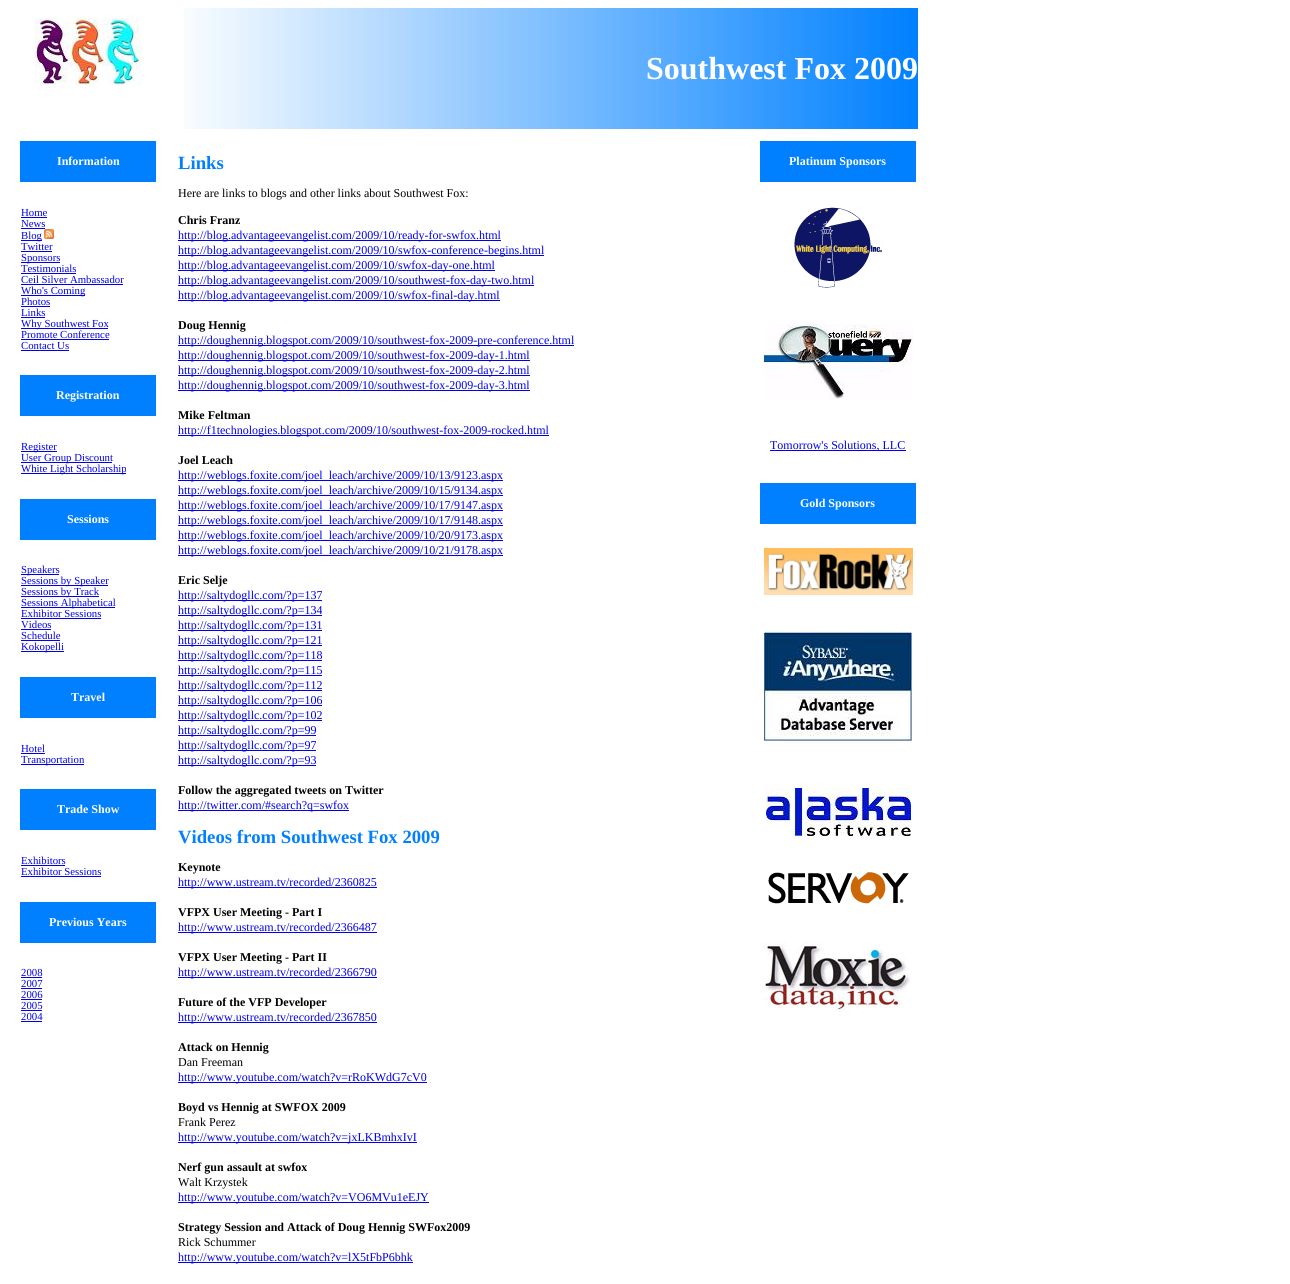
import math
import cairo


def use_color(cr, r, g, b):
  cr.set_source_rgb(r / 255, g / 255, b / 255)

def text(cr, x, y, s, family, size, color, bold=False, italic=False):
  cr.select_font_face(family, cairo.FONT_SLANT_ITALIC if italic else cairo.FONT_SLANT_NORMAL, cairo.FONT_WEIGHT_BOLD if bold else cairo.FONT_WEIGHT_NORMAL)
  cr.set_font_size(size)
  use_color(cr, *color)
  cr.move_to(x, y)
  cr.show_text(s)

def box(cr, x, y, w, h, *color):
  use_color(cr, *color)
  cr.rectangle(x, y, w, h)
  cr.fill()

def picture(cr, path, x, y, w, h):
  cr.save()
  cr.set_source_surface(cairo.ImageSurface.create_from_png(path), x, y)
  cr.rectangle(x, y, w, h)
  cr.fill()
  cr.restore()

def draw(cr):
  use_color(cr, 255, 255, 255)
  cr.paint()
  picture(cr, "img_01.png", 35, 18, 106, 67)
  picture(cr, "img_02.png", 184, 8, 734, 121)
  box(cr, 20, 141, 136, 41, 0, 127, 255)
  box(cr, 21, 217, 26, 1, 0, 0, 238)
  box(cr, 21, 228, 24, 1, 0, 0, 238)
  box(cr, 21, 240, 21, 1, 0, 0, 238)
  picture(cr, "img_03.png", 44, 229, 10, 10)
  box(cr, 21, 251, 31, 1, 0, 0, 238)
  box(cr, 21, 262, 39, 1, 0, 0, 238)
  box(cr, 21, 273, 55, 1, 0, 0, 238)
  box(cr, 21, 284, 102, 1, 0, 0, 238)
  box(cr, 21, 295, 64, 1, 0, 0, 238)
  box(cr, 21, 306, 29, 1, 0, 0, 238)
  box(cr, 21, 317, 24, 1, 0, 0, 238)
  box(cr, 21, 328, 87, 1, 0, 0, 238)
  box(cr, 21, 339, 88, 1, 0, 0, 238)
  box(cr, 21, 350, 48, 1, 0, 0, 238)
  box(cr, 20, 375, 136, 41, 0, 127, 255)
  box(cr, 21, 451, 36, 1, 0, 0, 238)
  box(cr, 21, 462, 91, 1, 0, 0, 238)
  box(cr, 21, 473, 105, 1, 0, 0, 238)
  box(cr, 20, 499, 136, 41, 0, 127, 255)
  box(cr, 21, 574, 38, 1, 0, 0, 238)
  box(cr, 21, 585, 87, 1, 0, 0, 238)
  box(cr, 21, 596, 78, 1, 0, 0, 238)
  box(cr, 21, 607, 94, 1, 0, 0, 238)
  box(cr, 21, 618, 80, 1, 0, 0, 238)
  box(cr, 21, 629, 30, 1, 0, 0, 238)
  box(cr, 21, 640, 39, 1, 0, 0, 238)
  box(cr, 21, 651, 43, 1, 0, 0, 238)
  box(cr, 20, 677, 136, 41, 0, 127, 255)
  box(cr, 21, 753, 24, 1, 0, 0, 238)
  box(cr, 21, 764, 63, 1, 0, 0, 238)
  box(cr, 20, 789, 136, 41, 0, 127, 255)
  box(cr, 21, 865, 44, 1, 0, 0, 238)
  box(cr, 21, 876, 80, 1, 0, 0, 238)
  box(cr, 20, 902, 136, 41, 0, 127, 255)
  box(cr, 21, 977, 21, 1, 0, 0, 238)
  box(cr, 21, 988, 21, 1, 0, 0, 238)
  box(cr, 21, 999, 21, 1, 0, 0, 238)
  box(cr, 21, 1010, 21, 1, 0, 0, 238)
  box(cr, 21, 1021, 21, 1, 0, 0, 238)
  box(cr, 178, 240, 323, 1, 0, 0, 238)
  box(cr, 178, 255, 366, 1, 0, 0, 238)
  box(cr, 178, 270, 317, 1, 0, 0, 238)
  box(cr, 178, 285, 356, 1, 0, 0, 238)
  box(cr, 178, 300, 322, 1, 0, 0, 238)
  box(cr, 178, 345, 396, 1, 0, 0, 238)
  box(cr, 178, 360, 352, 1, 0, 0, 238)
  box(cr, 178, 375, 352, 1, 0, 0, 238)
  box(cr, 178, 390, 352, 1, 0, 0, 238)
  box(cr, 178, 435, 371, 1, 0, 0, 238)
  box(cr, 178, 480, 325, 1, 0, 0, 238)
  box(cr, 178, 495, 325, 1, 0, 0, 238)
  box(cr, 178, 510, 325, 1, 0, 0, 238)
  box(cr, 178, 525, 325, 1, 0, 0, 238)
  box(cr, 178, 540, 325, 1, 0, 0, 238)
  box(cr, 178, 555, 325, 1, 0, 0, 238)
  box(cr, 178, 600, 144, 1, 0, 0, 238)
  box(cr, 178, 615, 144, 1, 0, 0, 238)
  box(cr, 178, 630, 144, 1, 0, 0, 238)
  box(cr, 178, 645, 144, 1, 0, 0, 238)
  box(cr, 178, 660, 144, 1, 0, 0, 238)
  box(cr, 178, 675, 144, 1, 0, 0, 238)
  box(cr, 178, 690, 144, 1, 0, 0, 238)
  box(cr, 178, 705, 144, 1, 0, 0, 238)
  box(cr, 178, 720, 144, 1, 0, 0, 238)
  box(cr, 178, 735, 138, 1, 0, 0, 238)
  box(cr, 178, 750, 138, 1, 0, 0, 238)
  box(cr, 178, 765, 138, 1, 0, 0, 238)
  box(cr, 178, 810, 171, 1, 0, 0, 238)
  box(cr, 178, 887, 199, 1, 0, 0, 238)
  box(cr, 178, 932, 199, 1, 0, 0, 238)
  box(cr, 178, 977, 199, 1, 0, 0, 238)
  box(cr, 178, 1022, 199, 1, 0, 0, 238)
  box(cr, 178, 1082, 249, 1, 0, 0, 238)
  box(cr, 178, 1142, 239, 1, 0, 0, 238)
  box(cr, 178, 1202, 251, 1, 0, 0, 238)
  box(cr, 178, 1262, 235, 1, 0, 0, 238)
  box(cr, 760, 141, 156, 41, 0, 127, 255)
  picture(cr, "img_04.png", 794, 207, 88, 81)
  picture(cr, "img_05.png", 764, 324, 149, 76)
  box(cr, 770, 450, 136, 1, 0, 0, 238)
  box(cr, 760, 483, 156, 41, 0, 127, 255)
  picture(cr, "img_06.png", 764, 548, 149, 47)
  picture(cr, "img_07.png", 764, 632, 148, 109)
  picture(cr, "img_08.png", 766, 788, 145, 48)
  picture(cr, "img_09.png", 768, 872, 141, 32)
  picture(cr, "img_10.png", 763, 941, 147, 72)
  text(cr, 646, 79, "Southwest Fox 2009", "Liberation Serif", 32, (255, 255, 255), bold=True)
  text(cr, 57, 165, "Information", "Liberation Serif", 12, (255, 255, 255), bold=True)
  text(cr, 21, 216, "Home", "Liberation Serif", 10.75, (0, 0, 238))
  text(cr, 21, 227, "News", "Liberation Serif", 10.75, (0, 0, 238))
  text(cr, 21, 239, "Blog", "Liberation Serif", 10.75, (0, 0, 238))
  text(cr, 21, 250, "Twitter", "Liberation Serif", 10.75, (0, 0, 238))
  text(cr, 21, 261, "Sponsors", "Liberation Serif", 10.75, (0, 0, 238))
  text(cr, 21, 272, "Testimonials", "Liberation Serif", 10.75, (0, 0, 238))
  text(cr, 21, 283, "Ceil Silver Ambassador", "Liberation Serif", 10.75, (0, 0, 238))
  text(cr, 21, 294, "Who's Coming", "Liberation Serif", 10.75, (0, 0, 238))
  text(cr, 21, 305, "Photos", "Liberation Serif", 10.75, (0, 0, 238))
  text(cr, 21, 316, "Links", "Liberation Serif", 10.75, (0, 0, 238))
  text(cr, 21, 327, "Why Southwest Fox", "Liberation Serif", 10.75, (0, 0, 238))
  text(cr, 21, 338, "Promote Conference", "Liberation Serif", 10.75, (0, 0, 238))
  text(cr, 21, 349, "Contact Us", "Liberation Serif", 10.75, (0, 0, 238))
  text(cr, 56, 399, "Registration", "Liberation Serif", 12, (255, 255, 255), bold=True)
  text(cr, 21, 450, "Register", "Liberation Serif", 10.75, (0, 0, 238))
  text(cr, 21, 461, "User Group Discount", "Liberation Serif", 10.75, (0, 0, 238))
  text(cr, 21, 472, "White Light Scholarship", "Liberation Serif", 10.75, (0, 0, 238))
  text(cr, 67, 523, "Sessions", "Liberation Serif", 12, (255, 255, 255), bold=True)
  text(cr, 21, 573, "Speakers", "Liberation Serif", 10.75, (0, 0, 238))
  text(cr, 21, 584, "Sessions by Speaker", "Liberation Serif", 10.75, (0, 0, 238))
  text(cr, 21, 595, "Sessions by Track", "Liberation Serif", 10.75, (0, 0, 238))
  text(cr, 21, 606, "Sessions Alphabetical", "Liberation Serif", 10.75, (0, 0, 238))
  text(cr, 21, 617, "Exhibitor Sessions", "Liberation Serif", 10.75, (0, 0, 238))
  text(cr, 21, 628, "Videos", "Liberation Serif", 10.75, (0, 0, 238))
  text(cr, 21, 639, "Schedule", "Liberation Serif", 10.75, (0, 0, 238))
  text(cr, 21, 650, "Kokopelli", "Liberation Serif", 10.75, (0, 0, 238))
  text(cr, 71, 701, "Travel", "Liberation Serif", 12, (255, 255, 255), bold=True)
  text(cr, 21, 752, "Hotel", "Liberation Serif", 10.75, (0, 0, 238))
  text(cr, 21, 763, "Transportation", "Liberation Serif", 10.75, (0, 0, 238))
  text(cr, 57, 813, "Trade Show", "Liberation Serif", 12, (255, 255, 255), bold=True)
  text(cr, 21, 864, "Exhibitors", "Liberation Serif", 10.75, (0, 0, 238))
  text(cr, 21, 875, "Exhibitor Sessions", "Liberation Serif", 10.75, (0, 0, 238))
  text(cr, 49, 926, "Previous Years", "Liberation Serif", 12, (255, 255, 255), bold=True)
  text(cr, 21, 976, "2008", "Liberation Serif", 10.75, (0, 0, 238))
  text(cr, 21, 987, "2007", "Liberation Serif", 10.75, (0, 0, 238))
  text(cr, 21, 998, "2006", "Liberation Serif", 10.75, (0, 0, 238))
  text(cr, 21, 1009, "2005", "Liberation Serif", 10.75, (0, 0, 238))
  text(cr, 21, 1020, "2004", "Liberation Serif", 10.75, (0, 0, 238))
  text(cr, 178, 169, "Links", "Liberation Serif", 18.7, (0, 127, 255), bold=True)
  text(cr, 178, 197, "Here are links to blogs and other links about Southwest Fox:", "Liberation Serif", 12, (0, 0, 0))
  text(cr, 178, 224, "Chris Franz", "Liberation Serif", 12, (0, 0, 0), bold=True)
  text(cr, 178, 239, "http://blog.advantageevangelist.com/2009/10/ready-for-swfox.html", "Liberation Serif", 12, (0, 0, 238))
  text(cr, 178, 254, "http://blog.advantageevangelist.com/2009/10/swfox-conference-begins.html", "Liberation Serif", 12, (0, 0, 238))
  text(cr, 178, 269, "http://blog.advantageevangelist.com/2009/10/swfox-day-one.html", "Liberation Serif", 12, (0, 0, 238))
  text(cr, 178, 284, "http://blog.advantageevangelist.com/2009/10/southwest-fox-day-two.html", "Liberation Serif", 12, (0, 0, 238))
  text(cr, 178, 299, "http://blog.advantageevangelist.com/2009/10/swfox-final-day.html", "Liberation Serif", 12, (0, 0, 238))
  text(cr, 178, 329, "Doug Hennig", "Liberation Serif", 12, (0, 0, 0), bold=True)
  text(cr, 178, 344, "http://doughennig.blogspot.com/2009/10/southwest-fox-2009-pre-conference.html", "Liberation Serif", 12, (0, 0, 238))
  text(cr, 178, 359, "http://doughennig.blogspot.com/2009/10/southwest-fox-2009-day-1.html", "Liberation Serif", 12, (0, 0, 238))
  text(cr, 178, 374, "http://doughennig.blogspot.com/2009/10/southwest-fox-2009-day-2.html", "Liberation Serif", 12, (0, 0, 238))
  text(cr, 178, 389, "http://doughennig.blogspot.com/2009/10/southwest-fox-2009-day-3.html", "Liberation Serif", 12, (0, 0, 238))
  text(cr, 178, 419, "Mike Feltman", "Liberation Serif", 12, (0, 0, 0), bold=True)
  text(cr, 178, 434, "http://f1technologies.blogspot.com/2009/10/southwest-fox-2009-rocked.html", "Liberation Serif", 12, (0, 0, 238))
  text(cr, 178, 464, "Joel Leach", "Liberation Serif", 12, (0, 0, 0), bold=True)
  text(cr, 178, 479, "http://weblogs.foxite.com/joel_leach/archive/2009/10/13/9123.aspx", "Liberation Serif", 12, (0, 0, 238))
  text(cr, 178, 494, "http://weblogs.foxite.com/joel_leach/archive/2009/10/15/9134.aspx", "Liberation Serif", 12, (0, 0, 238))
  text(cr, 178, 509, "http://weblogs.foxite.com/joel_leach/archive/2009/10/17/9147.aspx", "Liberation Serif", 12, (0, 0, 238))
  text(cr, 178, 524, "http://weblogs.foxite.com/joel_leach/archive/2009/10/17/9148.aspx", "Liberation Serif", 12, (0, 0, 238))
  text(cr, 178, 539, "http://weblogs.foxite.com/joel_leach/archive/2009/10/20/9173.aspx", "Liberation Serif", 12, (0, 0, 238))
  text(cr, 178, 554, "http://weblogs.foxite.com/joel_leach/archive/2009/10/21/9178.aspx", "Liberation Serif", 12, (0, 0, 238))
  text(cr, 178, 584, "Eric Selje", "Liberation Serif", 12, (0, 0, 0), bold=True)
  text(cr, 178, 599, "http://saltydogllc.com/?p=137", "Liberation Serif", 12, (0, 0, 238))
  text(cr, 178, 614, "http://saltydogllc.com/?p=134", "Liberation Serif", 12, (0, 0, 238))
  text(cr, 178, 629, "http://saltydogllc.com/?p=131", "Liberation Serif", 12, (0, 0, 238))
  text(cr, 178, 644, "http://saltydogllc.com/?p=121", "Liberation Serif", 12, (0, 0, 238))
  text(cr, 178, 659, "http://saltydogllc.com/?p=118", "Liberation Serif", 12, (0, 0, 238))
  text(cr, 178, 674, "http://saltydogllc.com/?p=115", "Liberation Serif", 12, (0, 0, 238))
  text(cr, 178, 689, "http://saltydogllc.com/?p=112", "Liberation Serif", 12, (0, 0, 238))
  text(cr, 178, 704, "http://saltydogllc.com/?p=106", "Liberation Serif", 12, (0, 0, 238))
  text(cr, 178, 719, "http://saltydogllc.com/?p=102", "Liberation Serif", 12, (0, 0, 238))
  text(cr, 178, 734, "http://saltydogllc.com/?p=99", "Liberation Serif", 12, (0, 0, 238))
  text(cr, 178, 749, "http://saltydogllc.com/?p=97", "Liberation Serif", 12, (0, 0, 238))
  text(cr, 178, 764, "http://saltydogllc.com/?p=93", "Liberation Serif", 12, (0, 0, 238))
  text(cr, 178, 794, "Follow the aggregated tweets on Twitter", "Liberation Serif", 12, (0, 0, 0), bold=True)
  text(cr, 178, 809, "http://twitter.com/#search?q=swfox", "Liberation Serif", 12, (0, 0, 238))
  text(cr, 178, 843, "Videos from Southwest Fox 2009", "Liberation Serif", 18.7, (0, 127, 255), bold=True)
  text(cr, 178, 871, "Keynote", "Liberation Serif", 12, (0, 0, 0), bold=True)
  text(cr, 178, 886, "http://www.ustream.tv/recorded/2360825", "Liberation Serif", 12, (0, 0, 238))
  text(cr, 178, 916, "VFPX User Meeting - Part I", "Liberation Serif", 12, (0, 0, 0), bold=True)
  text(cr, 178, 931, "http://www.ustream.tv/recorded/2366487", "Liberation Serif", 12, (0, 0, 238))
  text(cr, 178, 961, "VFPX User Meeting - Part II", "Liberation Serif", 12, (0, 0, 0), bold=True)
  text(cr, 178, 976, "http://www.ustream.tv/recorded/2366790", "Liberation Serif", 12, (0, 0, 238))
  text(cr, 178, 1006, "Future of the VFP Developer", "Liberation Serif", 12, (0, 0, 0), bold=True)
  text(cr, 178, 1021, "http://www.ustream.tv/recorded/2367850", "Liberation Serif", 12, (0, 0, 238))
  text(cr, 178, 1051, "Attack on Hennig", "Liberation Serif", 12, (0, 0, 0), bold=True)
  text(cr, 178, 1066, "Dan Freeman", "Liberation Serif", 12, (0, 0, 0))
  text(cr, 178, 1081, "http://www.youtube.com/watch?v=rRoKWdG7cV0", "Liberation Serif", 12, (0, 0, 238))
  text(cr, 178, 1111, "Boyd vs Hennig at SWFOX 2009", "Liberation Serif", 12, (0, 0, 0), bold=True)
  text(cr, 178, 1126, "Frank Perez", "Liberation Serif", 12, (0, 0, 0))
  text(cr, 178, 1141, "http://www.youtube.com/watch?v=jxLKBmhxIvI", "Liberation Serif", 12, (0, 0, 238))
  text(cr, 178, 1171, "Nerf gun assault at swfox", "Liberation Serif", 12, (0, 0, 0), bold=True)
  text(cr, 178, 1186, "Walt Krzystek", "Liberation Serif", 12, (0, 0, 0))
  text(cr, 178, 1201, "http://www.youtube.com/watch?v=VO6MVu1eEJY", "Liberation Serif", 12, (0, 0, 238))
  text(cr, 178, 1231, "Strategy Session and Attack of Doug Hennig SWFox2009", "Liberation Serif", 12, (0, 0, 0), bold=True)
  text(cr, 178, 1246, "Rick Schummer", "Liberation Serif", 12, (0, 0, 0))
  text(cr, 178, 1261, "http://www.youtube.com/watch?v=lX5tFbP6bhk", "Liberation Serif", 12, (0, 0, 238))
  text(cr, 789, 165, "Platinum Sponsors", "Liberation Serif", 12, (255, 255, 255), bold=True)
  text(cr, 770, 449, "Tomorrow's Solutions, LLC", "Liberation Serif", 12, (0, 0, 238))
  text(cr, 800, 507, "Gold Sponsors", "Liberation Serif", 12, (255, 255, 255), bold=True)


surface = cairo.ImageSurface(cairo.FORMAT_RGB24, 1290, 1284)
cr = cairo.Context(surface)
options = cairo.FontOptions()
options.set_hint_metrics(cairo.HINT_METRICS_OFF)
options.set_hint_style(cairo.HINT_STYLE_NONE)
cr.set_font_options(options)
cr.set_miter_limit(4)
draw(cr)
surface.write_to_png("out.png")
